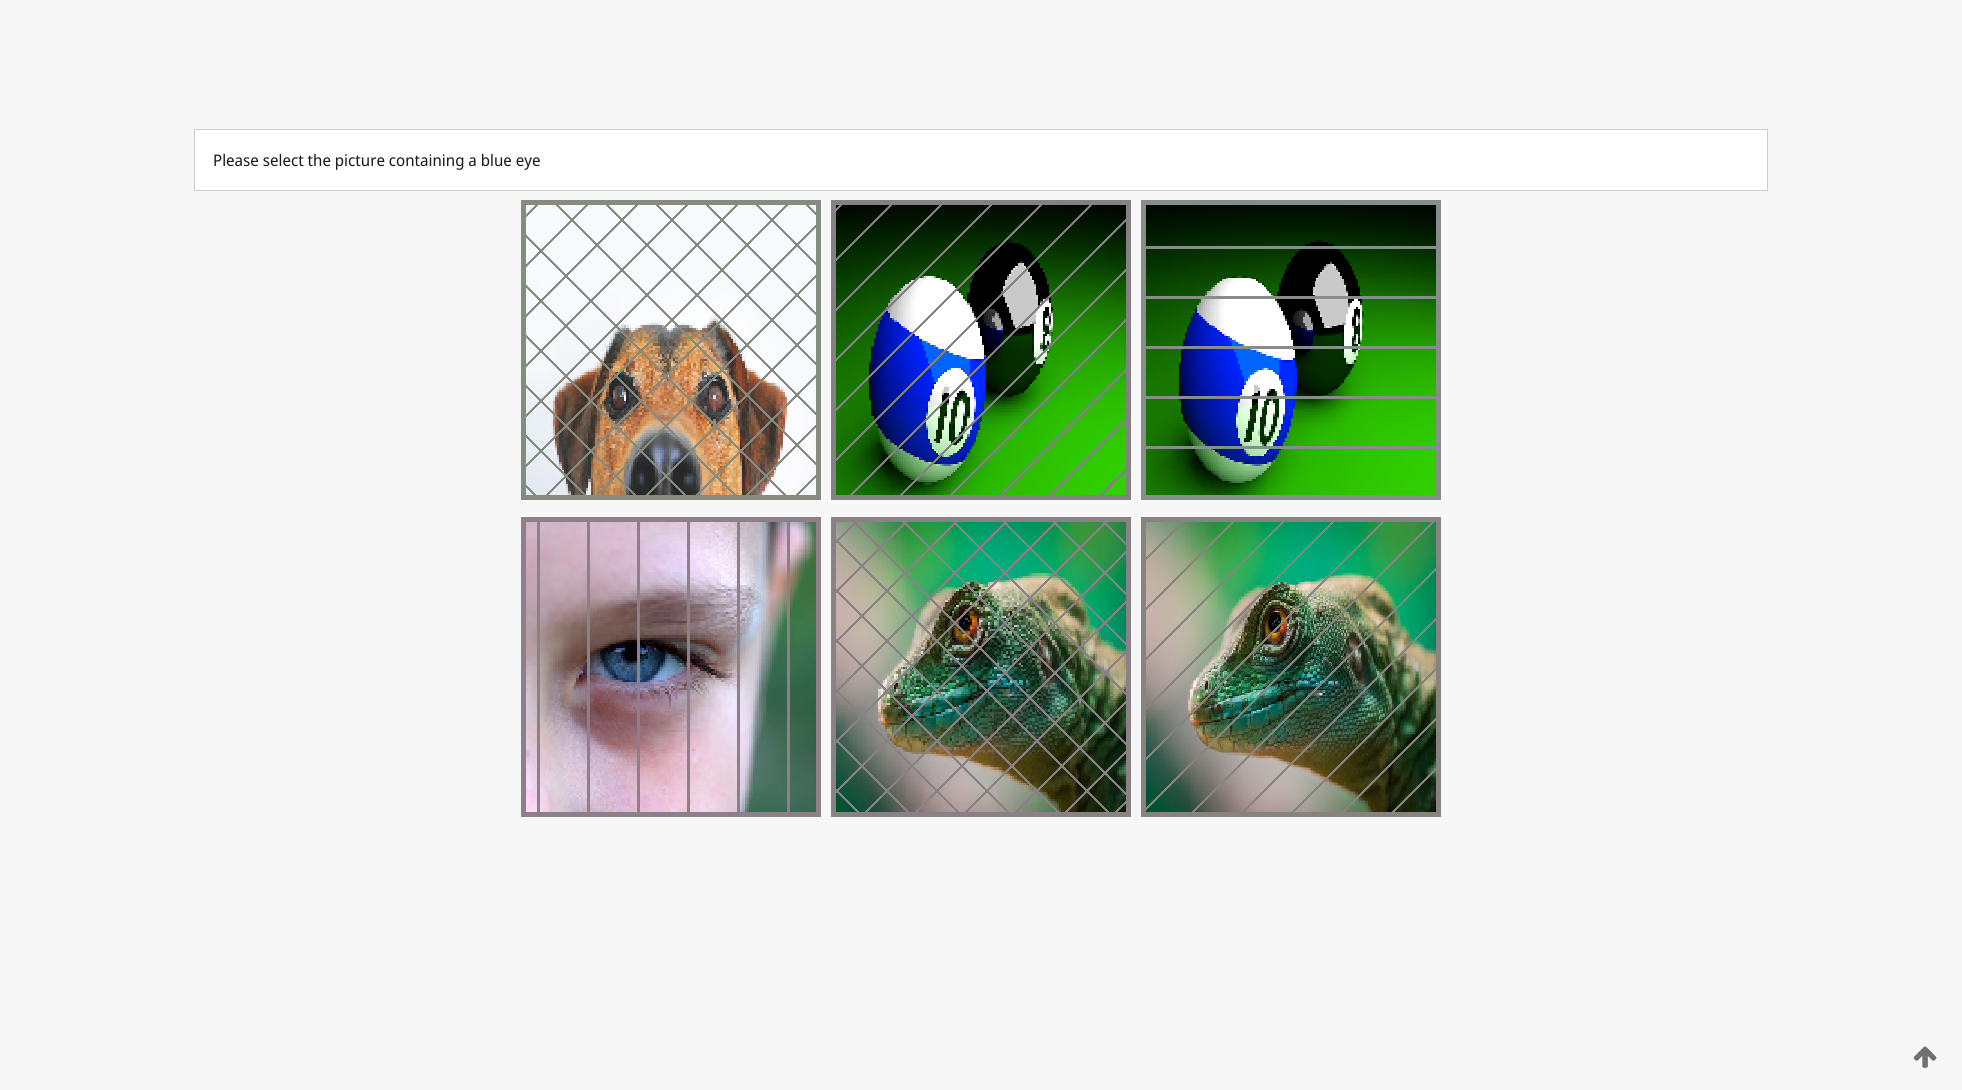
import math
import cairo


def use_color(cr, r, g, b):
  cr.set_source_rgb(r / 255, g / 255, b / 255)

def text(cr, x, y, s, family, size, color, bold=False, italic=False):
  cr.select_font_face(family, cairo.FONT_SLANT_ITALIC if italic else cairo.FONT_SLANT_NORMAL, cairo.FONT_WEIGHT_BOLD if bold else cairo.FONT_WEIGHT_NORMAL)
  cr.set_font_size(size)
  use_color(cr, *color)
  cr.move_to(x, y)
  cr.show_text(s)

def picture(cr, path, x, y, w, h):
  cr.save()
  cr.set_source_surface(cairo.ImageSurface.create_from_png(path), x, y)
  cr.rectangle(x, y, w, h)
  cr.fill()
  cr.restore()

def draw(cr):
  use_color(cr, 247, 247, 247)
  cr.paint()
  use_color(cr, 255, 255, 255)
  cr.rectangle(194.5, 129.5, 1573, 61)
  cr.fill_preserve()
  use_color(cr, 204, 204, 204)
  cr.set_line_width(1)
  cr.stroke()
  picture(cr, "img_01.png", 521, 200, 300, 300)
  picture(cr, "img_02.png", 831, 200, 300, 300)
  picture(cr, "img_03.png", 1141, 200, 300, 300)
  picture(cr, "img_04.png", 521, 517, 300, 300)
  picture(cr, "img_05.png", 831, 517, 300, 300)
  picture(cr, "img_06.png", 1141, 517, 300, 300)
  picture(cr, "img_07.png", 1913, 1046, 24, 22)
  text(cr, 213, 166, "Please select the picture containing a blue eye", "Noto Sans Display", 16, (26, 26, 26))


surface = cairo.ImageSurface(cairo.FORMAT_RGB24, 1962, 1090)
cr = cairo.Context(surface)
options = cairo.FontOptions()
options.set_hint_metrics(cairo.HINT_METRICS_OFF)
options.set_hint_style(cairo.HINT_STYLE_NONE)
cr.set_font_options(options)
cr.set_miter_limit(4)
draw(cr)
surface.write_to_png("out.png")
